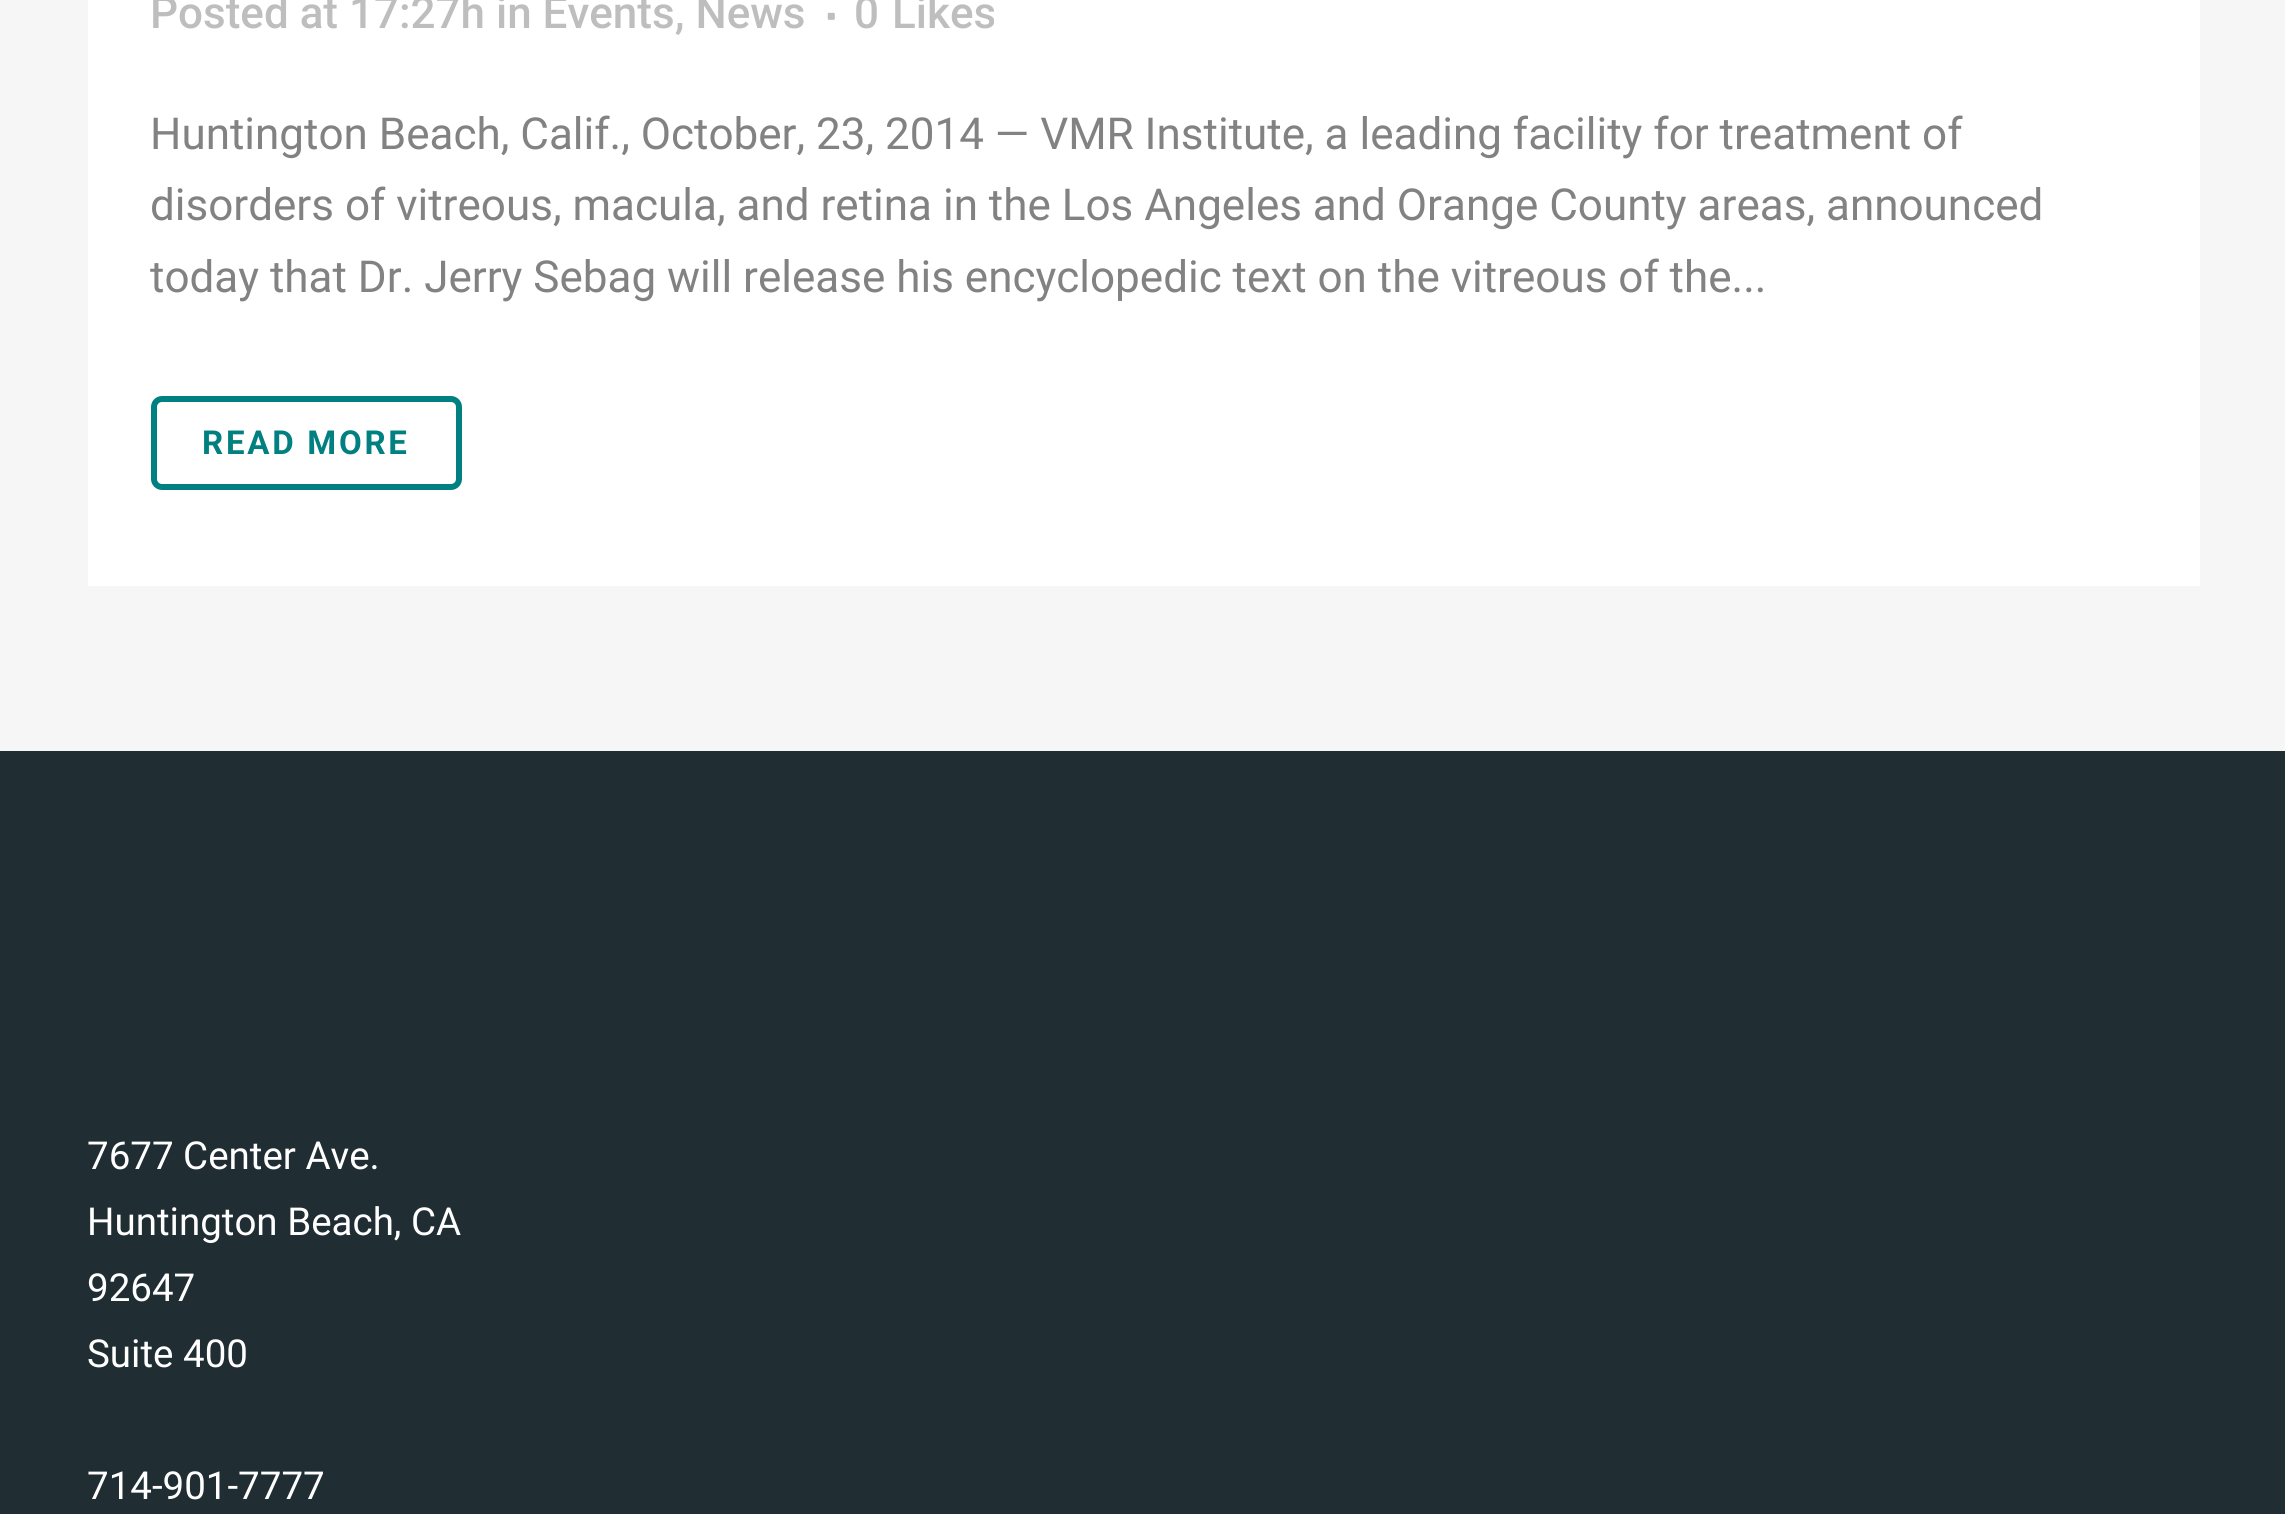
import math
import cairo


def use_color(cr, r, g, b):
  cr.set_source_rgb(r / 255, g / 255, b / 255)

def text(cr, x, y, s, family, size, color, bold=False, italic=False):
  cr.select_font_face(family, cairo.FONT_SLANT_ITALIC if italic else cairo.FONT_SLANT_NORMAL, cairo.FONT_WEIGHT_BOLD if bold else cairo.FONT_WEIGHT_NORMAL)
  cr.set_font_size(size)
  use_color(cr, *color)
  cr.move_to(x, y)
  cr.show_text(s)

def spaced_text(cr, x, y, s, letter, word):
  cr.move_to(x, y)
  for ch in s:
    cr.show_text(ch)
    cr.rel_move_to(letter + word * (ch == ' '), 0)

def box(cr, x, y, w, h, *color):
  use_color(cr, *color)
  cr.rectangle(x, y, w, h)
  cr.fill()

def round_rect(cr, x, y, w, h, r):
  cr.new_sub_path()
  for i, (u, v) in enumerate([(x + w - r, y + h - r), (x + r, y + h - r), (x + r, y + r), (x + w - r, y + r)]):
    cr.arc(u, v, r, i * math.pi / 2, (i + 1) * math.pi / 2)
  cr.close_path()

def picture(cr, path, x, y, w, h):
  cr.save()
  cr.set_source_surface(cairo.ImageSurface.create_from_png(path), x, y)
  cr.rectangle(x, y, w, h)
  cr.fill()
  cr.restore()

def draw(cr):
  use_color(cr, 246, 246, 246)
  cr.paint()
  box(cr, 88, 0, 2112, 586, 255, 255, 255)
  picture(cr, "img_01.png", 827, 12, 8, 8)
  round_rect(cr, 154, 399, 305, 88, 8)
  use_color(cr, 0, 128, 128)
  cr.set_line_width(6)
  cr.stroke()
  box(cr, 0, 751, 2285, 763, 32, 45, 51)
  text(cr, 150, 28, "Posted at 17:27h in Events, News", "Roboto Medium", 44, (190, 190, 190))
  text(cr, 854, 28, "0", "Roboto Medium", 44, (190, 190, 190))
  text(cr, 892, 28, "Likes", "Roboto Medium", 44, (190, 190, 190))
  text(cr, 150, 149, "Huntington Beach, Calif., October, 23, 2014 — VMR Institute, a leading facility for treatment of", "Roboto", 44, (130, 130, 130))
  text(cr, 150, 220, "disorders of vitreous, macula, and retina in the Los Angeles and Orange County areas, announced", "Roboto", 44, (130, 130, 130))
  text(cr, 150, 292, "today that Dr. Jerry Sebag will release his encyclopedic text on the vitreous of the...", "Roboto", 44, (130, 130, 130))
  cr.select_font_face("Roboto", cairo.FONT_SLANT_NORMAL, cairo.FONT_WEIGHT_BOLD)
  cr.set_font_size(33)
  use_color(cr, 0, 128, 128)
  spaced_text(cr, 202, 454, "READ MORE", 2.75, 0)
  text(cr, 87, 1169, "7677 Center Ave.", "Roboto", 38.5, (255, 255, 255))
  text(cr, 87, 1235, "Huntington Beach, CA", "Roboto", 38.5, (255, 255, 255))
  text(cr, 87, 1301, "92647", "Roboto", 38.5, (255, 255, 255))
  text(cr, 87, 1367, "Suite 400", "Roboto", 38.5, (255, 255, 255))
  text(cr, 87, 1499, "714-901-7777", "Roboto", 38.5, (255, 255, 255))


surface = cairo.ImageSurface(cairo.FORMAT_RGB24, 2285, 1514)
cr = cairo.Context(surface)
options = cairo.FontOptions()
options.set_hint_metrics(cairo.HINT_METRICS_OFF)
options.set_hint_style(cairo.HINT_STYLE_NONE)
cr.set_font_options(options)
cr.set_miter_limit(4)
draw(cr)
surface.write_to_png("out.png")
